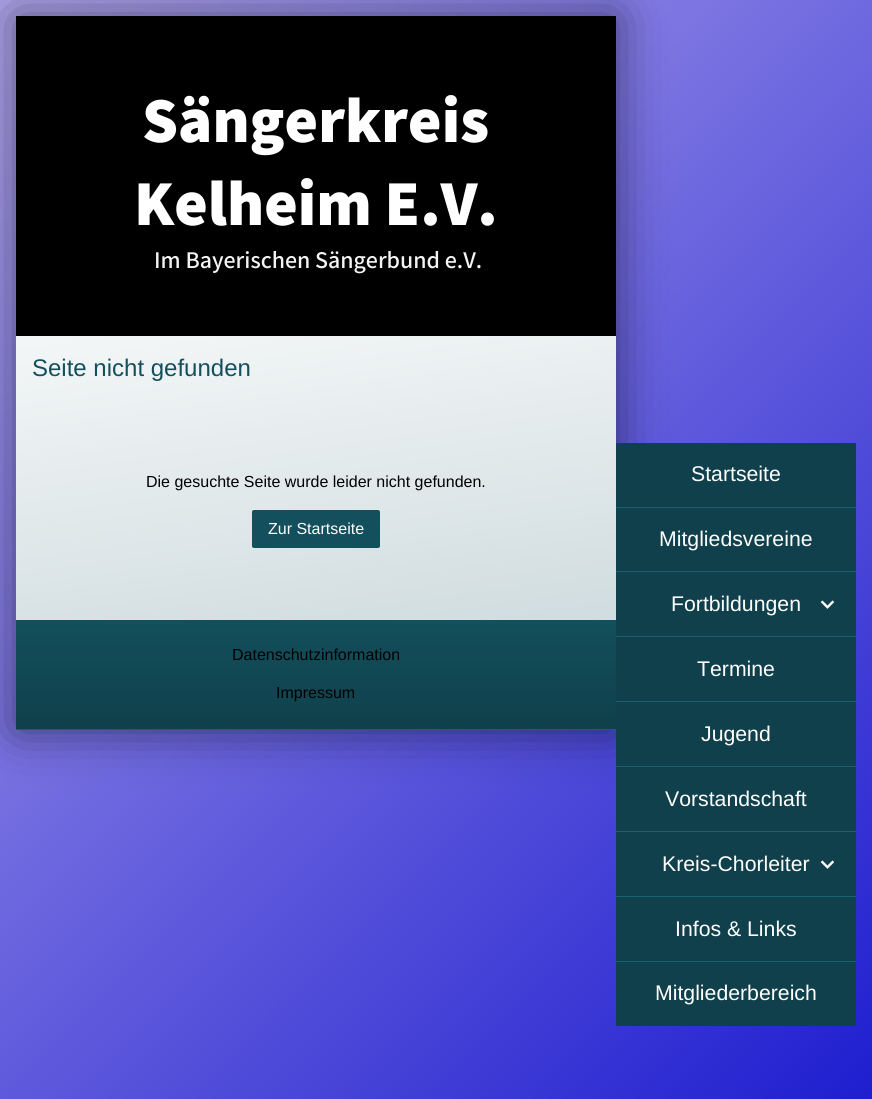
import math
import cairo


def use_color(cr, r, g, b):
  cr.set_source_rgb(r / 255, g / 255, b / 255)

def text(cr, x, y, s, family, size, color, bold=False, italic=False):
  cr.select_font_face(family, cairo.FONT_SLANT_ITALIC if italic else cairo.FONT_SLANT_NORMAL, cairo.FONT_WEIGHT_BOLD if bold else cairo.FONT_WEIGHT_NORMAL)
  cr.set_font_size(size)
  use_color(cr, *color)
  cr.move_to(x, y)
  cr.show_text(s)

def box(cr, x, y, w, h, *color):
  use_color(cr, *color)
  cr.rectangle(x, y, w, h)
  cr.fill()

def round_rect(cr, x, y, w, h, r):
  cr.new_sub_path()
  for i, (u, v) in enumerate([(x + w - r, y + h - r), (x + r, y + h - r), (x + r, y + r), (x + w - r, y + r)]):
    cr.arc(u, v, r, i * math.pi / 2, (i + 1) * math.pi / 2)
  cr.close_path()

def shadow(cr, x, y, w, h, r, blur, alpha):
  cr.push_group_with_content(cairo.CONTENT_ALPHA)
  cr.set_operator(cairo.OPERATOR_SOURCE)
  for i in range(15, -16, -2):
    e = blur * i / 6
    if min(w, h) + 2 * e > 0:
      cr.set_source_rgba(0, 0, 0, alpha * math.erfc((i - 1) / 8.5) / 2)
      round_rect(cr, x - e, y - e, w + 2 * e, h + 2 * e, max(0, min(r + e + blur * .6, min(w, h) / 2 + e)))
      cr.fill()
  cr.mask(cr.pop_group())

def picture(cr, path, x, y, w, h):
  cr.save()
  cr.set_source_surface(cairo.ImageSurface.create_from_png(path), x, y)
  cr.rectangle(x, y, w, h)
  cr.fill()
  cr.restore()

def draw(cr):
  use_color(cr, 255, 255, 255)
  cr.paint()
  gradient = cairo.LinearGradient(-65, 65, 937, 1066)
  gradient.add_color_stop_rgba(0, 0.69, 0.647, 0.925, 1)
  gradient.add_color_stop_rgba(1, 0.11, 0.11, 0.812, 1)
  cr.set_source(gradient)
  cr.rectangle(0, 0, 872, 1099)
  cr.fill()
  use_color(cr, 0, 0, 0)
  shadow(cr, 16, 16, 600, 714, 0, 25, 0.51)
  box(cr, 16, 16, 600, 320, 0, 0, 0)
  gradient = cairo.LinearGradient(274, 182, 341, 659)
  gradient.add_color_stop_rgba(0, 1, 1, 1, 1)
  gradient.add_color_stop_rgba(1, 0.816, 0.863, 0.875, 1)
  cr.set_source(gradient)
  cr.rectangle(16, 336, 600, 284)
  cr.fill()
  use_color(cr, 19, 79, 92)
  round_rect(cr, 252, 510, 128, 38, 2)
  cr.fill()
  gradient = cairo.LinearGradient(316, 620, 316, 729)
  gradient.add_color_stop_rgba(0, 0.075, 0.31, 0.361, 1)
  gradient.add_color_stop_rgba(1, 0.059, 0.251, 0.294, 1)
  cr.set_source(gradient)
  cr.rectangle(16, 620, 600, 109)
  cr.fill()
  box(cr, 16, 729, 600, 1, 23, 97, 113)
  box(cr, 616, 443, 240, 64, 15, 64, 75)
  box(cr, 616, 508, 240, 63, 15, 64, 75)
  box(cr, 616, 507, 240, 1, 23, 97, 113)
  box(cr, 616, 572, 240, 64, 15, 64, 75)
  box(cr, 616, 571, 240, 1, 23, 97, 113)
  picture(cr, "img_01.png", 820, 600, 15, 9)
  box(cr, 616, 637, 240, 64, 15, 64, 75)
  box(cr, 616, 636, 240, 1, 23, 97, 113)
  box(cr, 616, 702, 240, 64, 15, 64, 75)
  box(cr, 616, 701, 240, 1, 23, 97, 113)
  box(cr, 616, 767, 240, 64, 15, 64, 75)
  box(cr, 616, 766, 240, 1, 23, 97, 113)
  box(cr, 616, 832, 240, 64, 15, 64, 75)
  box(cr, 616, 831, 240, 1, 23, 97, 113)
  picture(cr, "img_01.png", 820, 860, 15, 9)
  box(cr, 616, 897, 240, 64, 15, 64, 75)
  box(cr, 616, 896, 240, 1, 23, 97, 113)
  box(cr, 616, 962, 240, 64, 15, 64, 75)
  box(cr, 616, 961, 240, 1, 23, 97, 113)
  text(cr, 142, 142, "Sängerkreis", "Assistant ExtraBold", 64, (255, 255, 255))
  text(cr, 134, 225, "Kelheim E.V.", "Assistant ExtraBold", 64, (255, 255, 255))
  text(cr, 154, 268, "Im Bayerischen Sängerbund e.V.", "Assistant SemiBold", 24, (243, 243, 243))
  text(cr, 32, 376, "Seite nicht gefunden", "Liberation Sans", 24, (19, 79, 92))
  text(cr, 146, 487, "Die gesuchte Seite wurde leider nicht gefunden.", "Liberation Sans", 16, (0, 0, 0))
  text(cr, 268, 534, "Zur Startseite", "Liberation Sans", 16, (255, 255, 255))
  text(cr, 232, 660, "Datenschutzinformation", "Liberation Sans", 16, (0, 0, 0))
  text(cr, 276, 698, "Impressum", "Liberation Sans", 16, (0, 0, 0))
  text(cr, 691, 481, "Startseite", "Liberation Sans", 21.25, (255, 255, 255))
  text(cr, 659, 546, "Mitgliedsvereine", "Liberation Sans", 21.25, (255, 255, 255))
  text(cr, 671, 611, "Fortbildungen", "Liberation Sans", 21.25, (255, 255, 255))
  text(cr, 697, 676, "Termine", "Liberation Sans", 21.25, (255, 255, 255))
  text(cr, 701, 741, "Jugend", "Liberation Sans", 21.25, (255, 255, 255))
  text(cr, 665, 806, "Vorstandschaft", "Liberation Sans", 21.25, (255, 255, 255))
  text(cr, 662, 871, "Kreis-Chorleiter", "Liberation Sans", 21.25, (255, 255, 255))
  text(cr, 675, 936, "Infos & Links", "Liberation Sans", 21.25, (255, 255, 255))
  text(cr, 655, 1000, "Mitgliederbereich", "Liberation Sans", 21.25, (255, 255, 255))


surface = cairo.ImageSurface(cairo.FORMAT_RGB24, 872, 1099)
cr = cairo.Context(surface)
options = cairo.FontOptions()
options.set_hint_metrics(cairo.HINT_METRICS_OFF)
options.set_hint_style(cairo.HINT_STYLE_NONE)
cr.set_font_options(options)
cr.set_miter_limit(4)
draw(cr)
surface.write_to_png("out.png")
